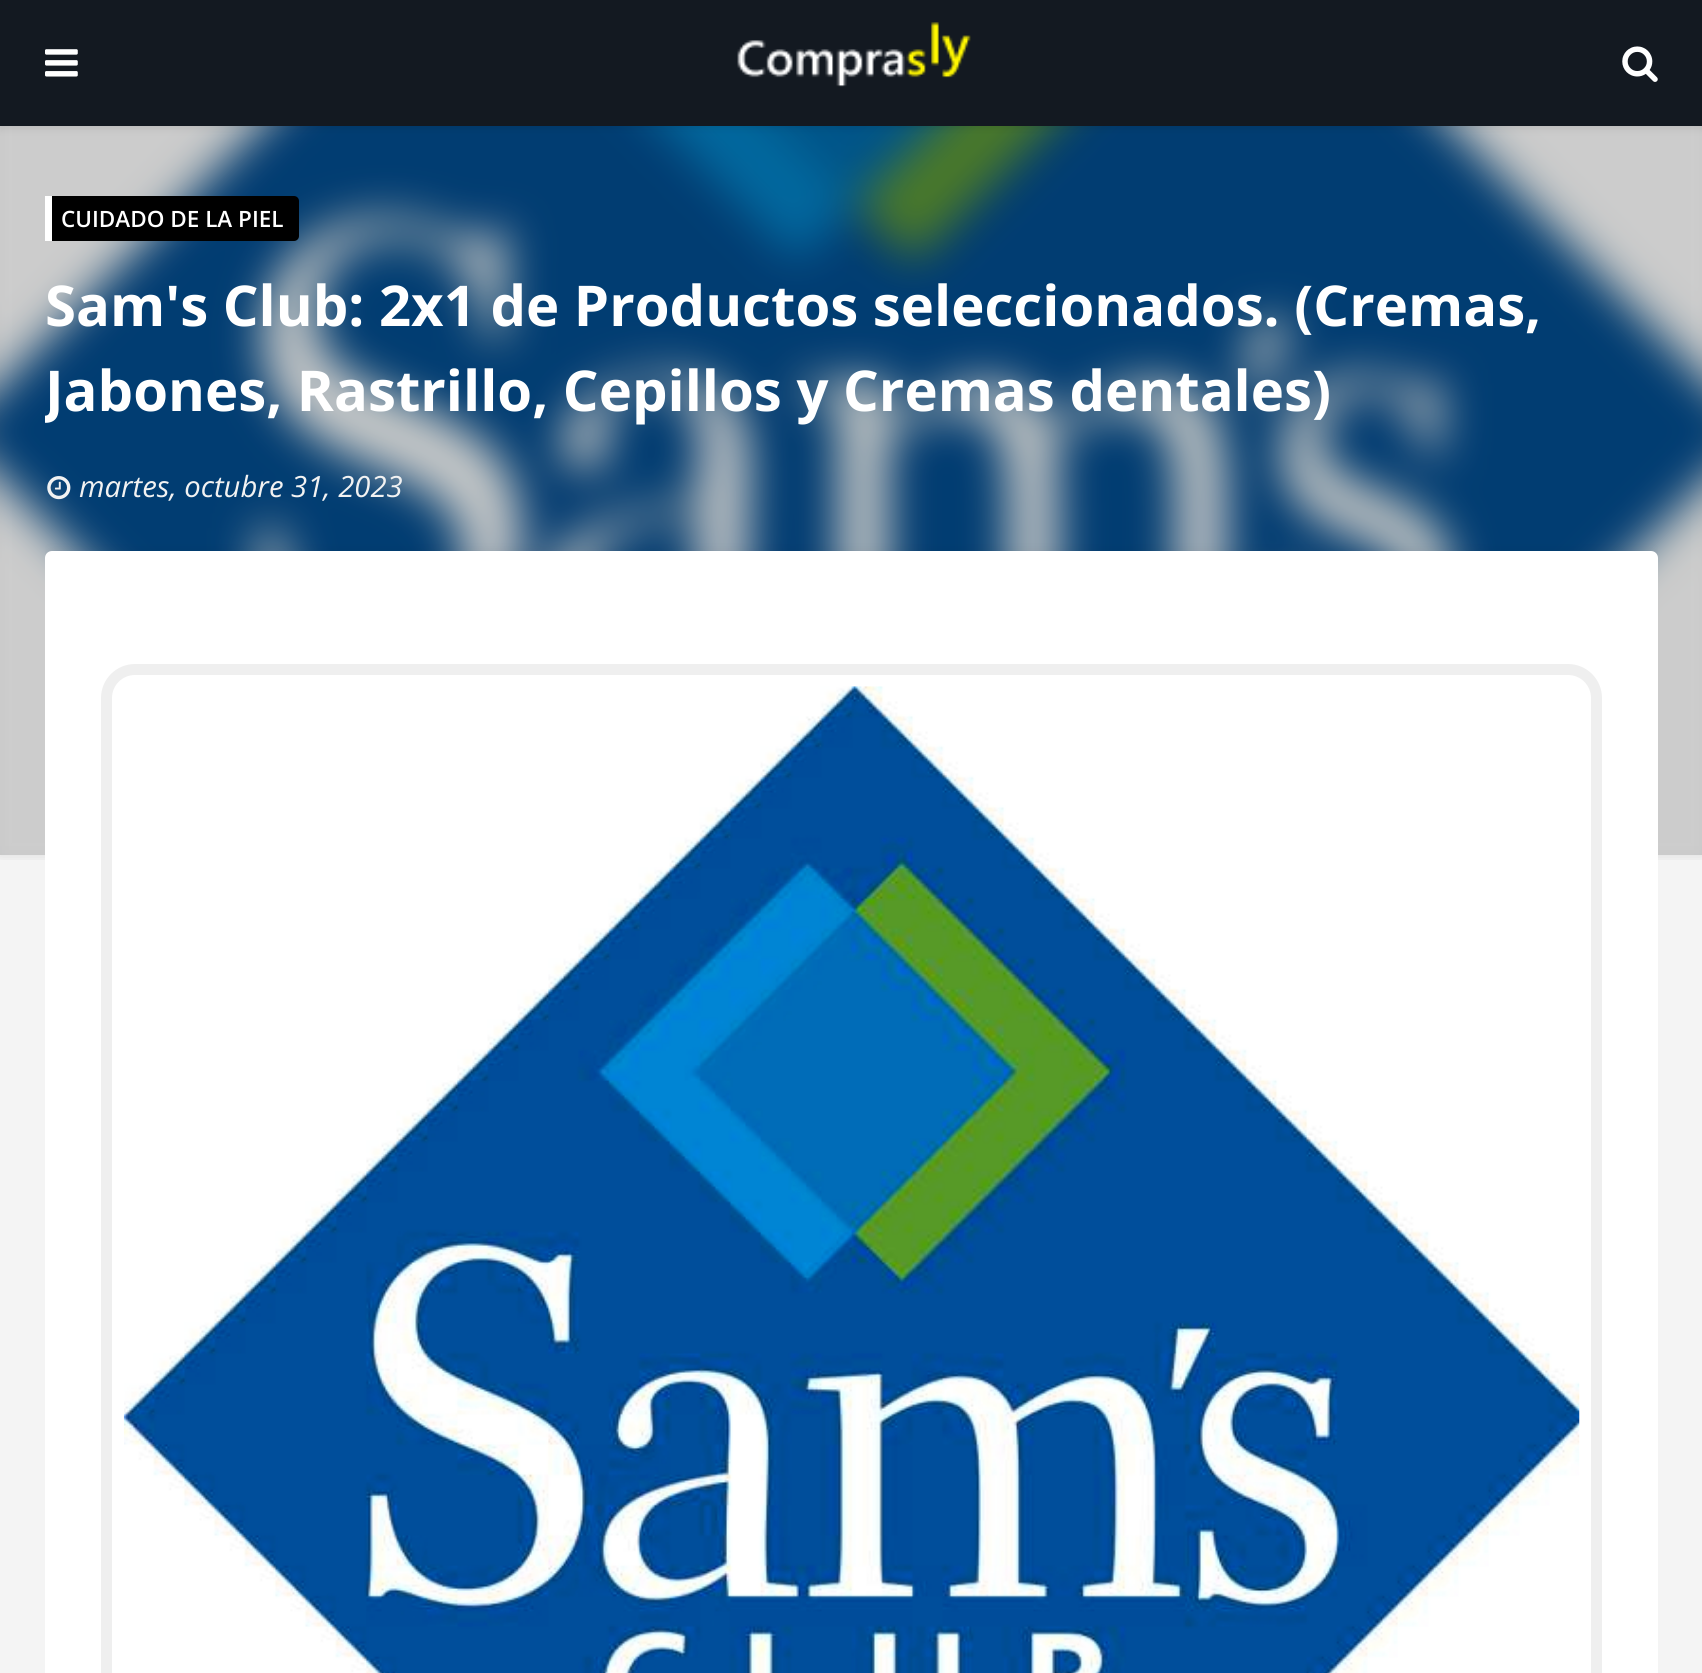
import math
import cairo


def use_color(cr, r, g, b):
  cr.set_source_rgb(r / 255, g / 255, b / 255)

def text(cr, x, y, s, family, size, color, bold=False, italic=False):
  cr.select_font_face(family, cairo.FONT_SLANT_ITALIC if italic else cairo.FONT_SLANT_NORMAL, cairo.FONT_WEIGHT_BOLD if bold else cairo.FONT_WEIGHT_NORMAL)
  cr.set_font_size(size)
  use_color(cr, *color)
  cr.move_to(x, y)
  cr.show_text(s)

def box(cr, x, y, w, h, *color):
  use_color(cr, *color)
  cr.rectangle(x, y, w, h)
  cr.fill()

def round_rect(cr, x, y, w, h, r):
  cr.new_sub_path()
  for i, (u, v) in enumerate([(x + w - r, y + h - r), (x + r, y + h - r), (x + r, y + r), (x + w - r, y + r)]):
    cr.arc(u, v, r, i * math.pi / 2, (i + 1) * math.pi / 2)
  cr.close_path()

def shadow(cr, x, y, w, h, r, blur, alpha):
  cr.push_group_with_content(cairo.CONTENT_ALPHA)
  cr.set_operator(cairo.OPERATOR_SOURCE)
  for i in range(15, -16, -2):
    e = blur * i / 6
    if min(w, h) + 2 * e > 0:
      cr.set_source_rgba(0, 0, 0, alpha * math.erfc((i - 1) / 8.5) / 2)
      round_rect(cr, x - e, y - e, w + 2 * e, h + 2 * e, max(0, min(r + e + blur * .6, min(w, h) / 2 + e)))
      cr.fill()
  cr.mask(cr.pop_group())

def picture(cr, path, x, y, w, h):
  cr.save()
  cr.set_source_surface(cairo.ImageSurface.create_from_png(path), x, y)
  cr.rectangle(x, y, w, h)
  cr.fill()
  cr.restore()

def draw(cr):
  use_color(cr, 244, 244, 244)
  cr.paint()
  cr.save()
  cr.rectangle(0, 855, 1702, 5)
  cr.clip()
  use_color(cr, 0, 0, 0)
  shadow(cr, 0, 0, 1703, 855, 0, 5.5, 0.1)
  cr.restore()
  cr.save()
  cr.rectangle(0, 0, 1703, 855)
  cr.clip()
  use_color(cr, 19, 25, 33)
  shadow(cr, -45, -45, 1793, 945, 0, 22.5, 1)
  cr.restore()
  picture(cr, "img_01.png", 0, 126, 1702, 729)
  cr.save()
  cr.rectangle(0, 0, 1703, 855)
  cr.clip()
  use_color(cr, 0, 0, 0)
  shadow(cr, -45, -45, 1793, 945, 0, 22.5, 0.2)
  cr.restore()
  use_color(cr, 0, 0, 0)
  shadow(cr, 0, 2, 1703, 126, 0, 4.5, 0.1)
  box(cr, 0, 0, 1702, 126, 19, 25, 33)
  picture(cr, "img_02.png", 45, 49, 33, 28)
  picture(cr, "img_03.png", 737, 22, 234, 65)
  picture(cr, "img_04.png", 1622, 46, 36, 36)
  use_color(cr, 0, 0, 0)
  round_rect(cr, 45, 196, 254, 45, 5)
  cr.fill()
  box(cr, 45, 196, 7, 45, 255, 255, 255)
  picture(cr, "img_05.png", 47, 476, 24, 24)
  cr.save()
  cr.rectangle(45, 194, 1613, 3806)
  cr.clip()
  use_color(cr, 0, 0, 0)
  shadow(cr, 45, 551, 1613, 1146, 7, 5.5, 0.05)
  cr.restore()
  round_rect(cr, 45, 551, 1613, 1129, 7)
  cr.fill()
  round_rect(cr, 106.5, 669.5, 1490, 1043, 28.5)
  use_color(cr, 239, 239, 239)
  cr.set_line_width(11)
  cr.stroke()
  picture(cr, "img_06.png", 123, 686, 1457, 987)
  text(cr, 61, 227, "CUIDADO DE LA PIEL", "Open Sans SemiBold", 22.5, (255, 255, 255))
  text(cr, 45, 326, "Sam's Club: 2x1 de Productos seleccionados. (Cremas,", "Open Sans", 56.25, (255, 255, 255), bold=True)
  cr.save()
  cr.rectangle(45, 194, 1613, 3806)
  cr.clip()
  text(cr, 45, 411, "Jabones, Rastrillo, Cepillos y Cremas dentales)", "Open Sans", 56.25, (255, 255, 255), bold=True)
  cr.restore()
  text(cr, 79, 497, "martes, octubre 31, 2023", "Open Sans", 29.25, (242, 242, 242), italic=True)


surface = cairo.ImageSurface(cairo.FORMAT_RGB24, 1702, 1673)
cr = cairo.Context(surface)
options = cairo.FontOptions()
options.set_hint_metrics(cairo.HINT_METRICS_OFF)
options.set_hint_style(cairo.HINT_STYLE_NONE)
cr.set_font_options(options)
cr.set_miter_limit(4)
draw(cr)
surface.write_to_png("out.png")
